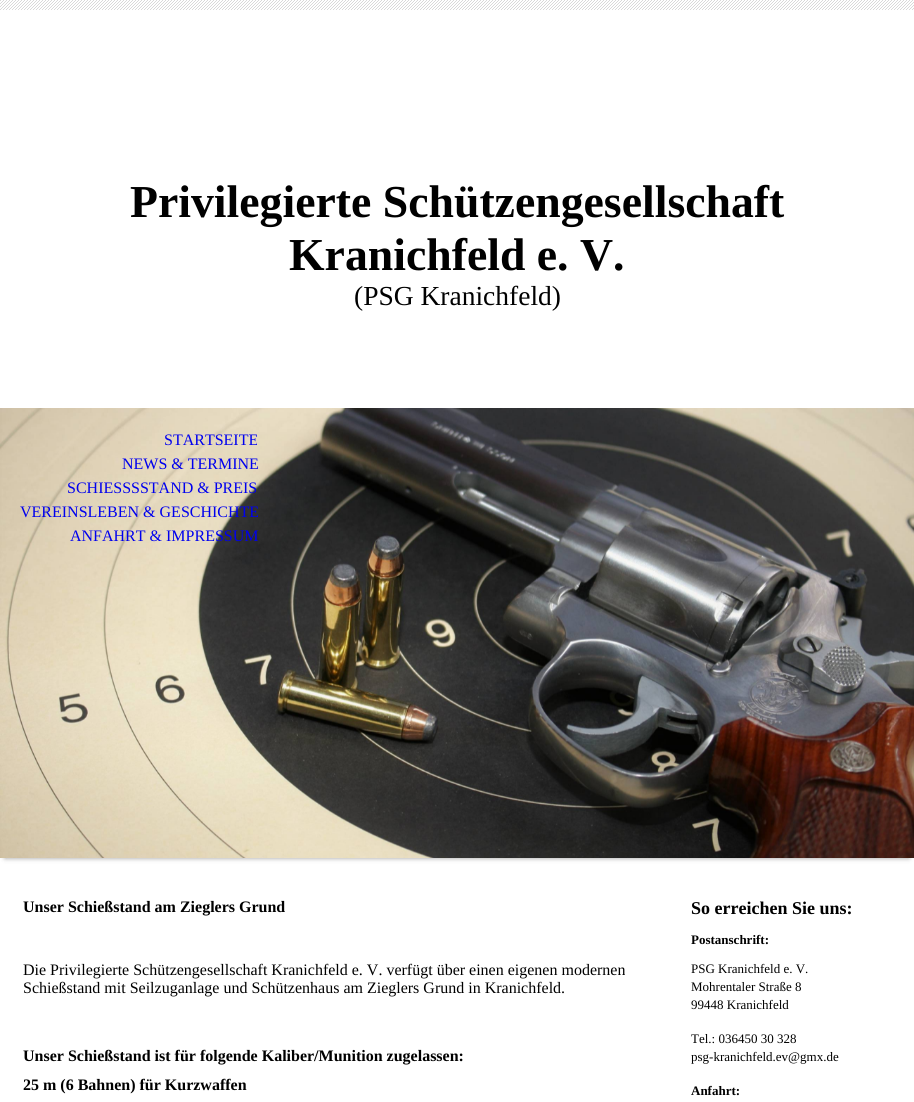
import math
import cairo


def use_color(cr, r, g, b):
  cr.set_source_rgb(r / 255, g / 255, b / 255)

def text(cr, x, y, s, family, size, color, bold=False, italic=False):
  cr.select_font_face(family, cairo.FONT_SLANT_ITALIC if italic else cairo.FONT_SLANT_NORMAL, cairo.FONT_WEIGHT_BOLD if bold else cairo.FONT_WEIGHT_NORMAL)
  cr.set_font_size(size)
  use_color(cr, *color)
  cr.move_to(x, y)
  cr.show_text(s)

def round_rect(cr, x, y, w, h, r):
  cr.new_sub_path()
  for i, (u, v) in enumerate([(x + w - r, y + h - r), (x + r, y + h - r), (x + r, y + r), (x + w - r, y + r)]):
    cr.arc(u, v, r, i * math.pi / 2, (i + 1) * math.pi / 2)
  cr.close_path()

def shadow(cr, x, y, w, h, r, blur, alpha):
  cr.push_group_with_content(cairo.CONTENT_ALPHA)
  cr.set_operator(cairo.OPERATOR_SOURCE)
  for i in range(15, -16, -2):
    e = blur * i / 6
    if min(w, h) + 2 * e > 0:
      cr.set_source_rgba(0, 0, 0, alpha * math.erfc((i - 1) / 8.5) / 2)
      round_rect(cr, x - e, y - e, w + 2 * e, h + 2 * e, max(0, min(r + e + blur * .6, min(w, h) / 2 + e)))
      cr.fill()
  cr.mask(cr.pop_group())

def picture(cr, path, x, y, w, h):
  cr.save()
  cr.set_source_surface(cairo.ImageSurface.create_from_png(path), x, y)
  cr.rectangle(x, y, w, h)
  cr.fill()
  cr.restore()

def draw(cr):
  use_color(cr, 255, 255, 255)
  cr.paint()
  picture(cr, "img_01.png", 0, 0, 914, 10)
  use_color(cr, 0, 0, 0)
  shadow(cr, 5, 418, 904, 440, 0, 2.5, 0.4)
  picture(cr, "img_02.png", 0, 408, 914, 450)
  text(cr, 130, 217, "Privilegierte Schützengesellschaft", "Liberation Serif", 45.75, (0, 0, 0), bold=True)
  text(cr, 289, 270, "Kranichfeld e. V.", "Liberation Serif", 45.75, (0, 0, 0), bold=True)
  text(cr, 354, 305, "(PSG Kranichfeld)", "Liberation Serif", 27.5, (0, 0, 0))
  text(cr, 164, 445, "STARTSEITE", "Liberation Serif", 16, (0, 0, 238))
  text(cr, 122, 469, "NEWS & TERMINE", "Liberation Serif", 16, (0, 0, 238))
  text(cr, 67, 493, "SCHIESS", "Liberation Serif", 16, (0, 0, 238))
  text(cr, 131, 493, "SSTAND & PREIS", "Liberation Serif", 16, (0, 0, 238))
  text(cr, 20, 517, "VEREINSLEBEN & GESCHICHTE", "Liberation Serif", 16, (0, 0, 238))
  text(cr, 70, 541, "ANFAHRT & IMPRESSUM", "Liberation Serif", 16, (0, 0, 238))
  text(cr, 23, 912, "Unser Schießstand am Zieglers Grund", "Liberation Serif", 16, (0, 0, 0), bold=True)
  text(cr, 23, 975, "Die Privilegierte Schützengesellschaft Kranichfeld e. V. verfügt über einen eigenen modernen", "Liberation Serif", 16, (0, 0, 0))
  text(cr, 23, 993, "Schießstand mit Seilzuganlage und Schützenhaus am Zieglers Grund in Kranichfeld.", "Liberation Serif", 16, (0, 0, 0))
  text(cr, 23, 1061, "Unser Schießstand ist für folgende Kaliber/Munition zugelassen:", "Liberation Serif", 16, (0, 0, 0), bold=True)
  text(cr, 23, 1090, "25 m (6 Bahnen) für Kurzwaffen", "Liberation Serif", 16, (0, 0, 0), bold=True)
  text(cr, 691, 914, "So erreichen Sie uns:", "Liberation Serif", 18, (0, 0, 0), bold=True)
  text(cr, 691, 944, "Postanschrift:", "Liberation Serif", 13, (0, 0, 0), bold=True)
  text(cr, 691, 973, "PSG Kranichfeld e. V.", "Liberation Serif", 13, (0, 0, 0))
  text(cr, 691, 991, "Mohrentaler Straße 8", "Liberation Serif", 13, (0, 0, 0))
  text(cr, 691, 1009, "99448 Kranichfeld", "Liberation Serif", 13, (0, 0, 0))
  text(cr, 691, 1043, "Tel.: 036450 30 328", "Liberation Serif", 13, (0, 0, 0))
  text(cr, 691, 1061, "psg-kranichfeld.ev@gmx.de", "Liberation Serif", 13, (0, 0, 0))
  text(cr, 691, 1095, "Anfahrt:", "Liberation Serif", 13, (0, 0, 0), bold=True)


surface = cairo.ImageSurface(cairo.FORMAT_RGB24, 914, 1102)
cr = cairo.Context(surface)
options = cairo.FontOptions()
options.set_hint_metrics(cairo.HINT_METRICS_OFF)
options.set_hint_style(cairo.HINT_STYLE_NONE)
cr.set_font_options(options)
cr.set_miter_limit(4)
draw(cr)
surface.write_to_png("out.png")
